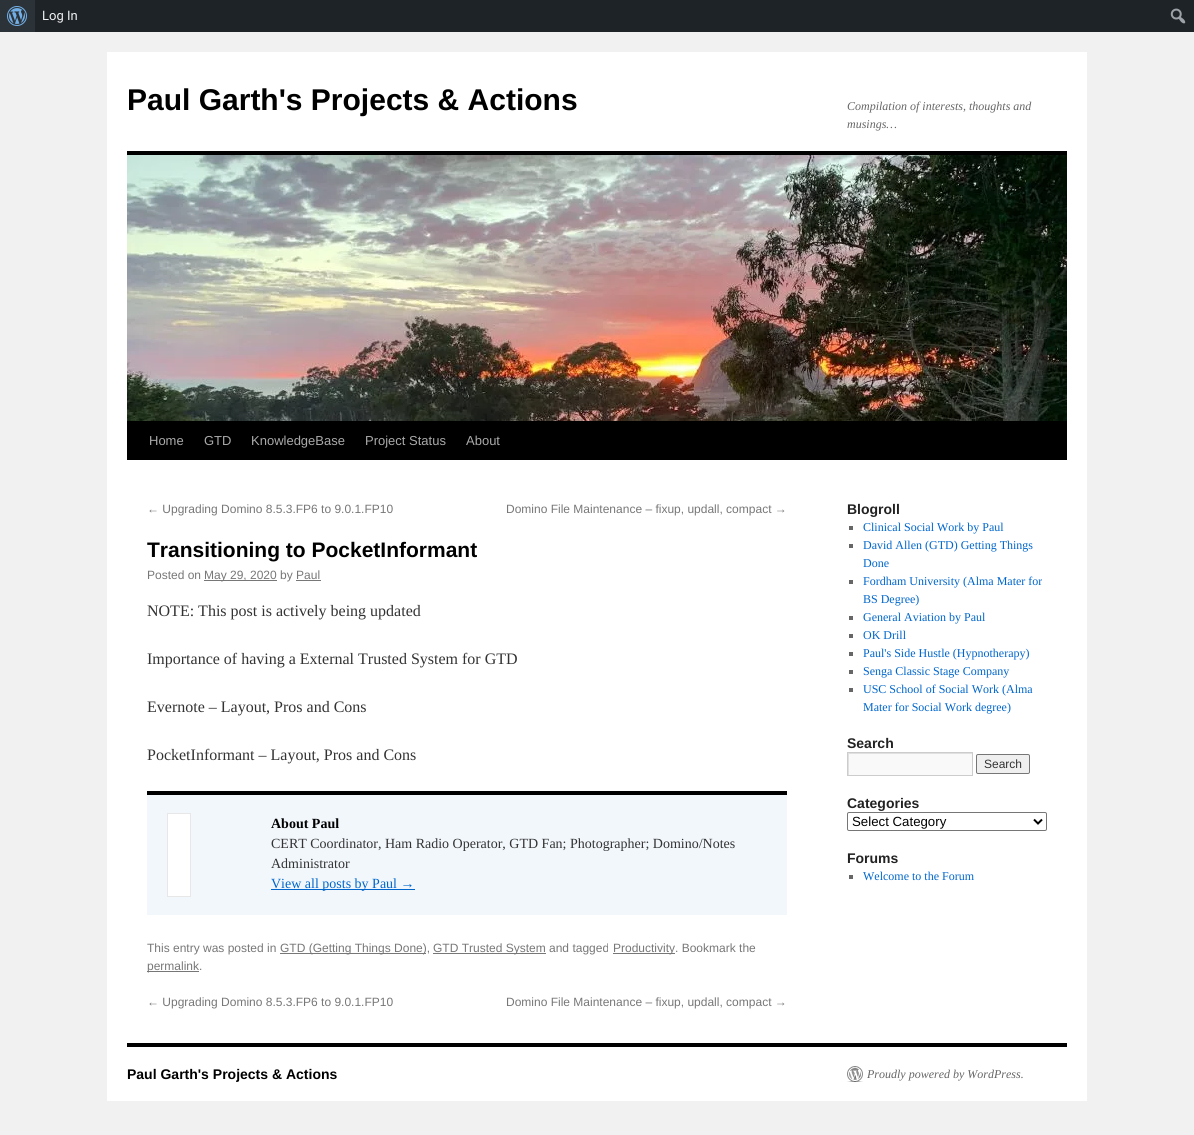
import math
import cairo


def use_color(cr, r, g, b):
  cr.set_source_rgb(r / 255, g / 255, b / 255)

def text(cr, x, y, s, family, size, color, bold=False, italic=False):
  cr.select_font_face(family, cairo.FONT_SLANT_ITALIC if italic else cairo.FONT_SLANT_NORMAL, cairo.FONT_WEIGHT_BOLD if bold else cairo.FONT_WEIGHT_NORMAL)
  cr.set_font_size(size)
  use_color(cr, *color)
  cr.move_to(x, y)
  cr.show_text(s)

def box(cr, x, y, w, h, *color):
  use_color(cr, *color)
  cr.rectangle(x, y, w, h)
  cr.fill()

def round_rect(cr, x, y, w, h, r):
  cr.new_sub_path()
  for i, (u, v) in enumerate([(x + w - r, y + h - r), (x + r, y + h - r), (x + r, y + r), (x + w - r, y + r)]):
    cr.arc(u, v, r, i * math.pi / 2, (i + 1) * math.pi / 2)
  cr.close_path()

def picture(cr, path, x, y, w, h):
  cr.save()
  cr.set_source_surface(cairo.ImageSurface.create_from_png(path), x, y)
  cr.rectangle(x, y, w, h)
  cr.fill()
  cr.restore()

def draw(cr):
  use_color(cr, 241, 241, 241)
  cr.paint()
  box(cr, 35, 0, 1159, 32, 29, 35, 39)
  box(cr, 0, 0, 35, 32, 44, 51, 56)
  picture(cr, "img_01.png", 7, 6, 20, 20)
  picture(cr, "img_02.png", 1170, 8, 16, 16)
  box(cr, 107, 52, 980, 1049, 255, 255, 255)
  box(cr, 127, 151, 940, 4, 0, 0, 0)
  box(cr, 127, 421, 940, 39, 0, 0, 0)
  picture(cr, "img_03.png", 127, 155, 940, 266)
  box(cr, 204, 580, 73, 1, 119, 119, 119)
  box(cr, 296, 580, 25, 1, 119, 119, 119)
  box(cr, 147, 795, 640, 120, 242, 247, 252)
  box(cr, 147, 791, 640, 4, 0, 0, 0)
  use_color(cr, 255, 255, 255)
  cr.rectangle(167.5, 813.5, 23, 83)
  cr.fill_preserve()
  use_color(cr, 231, 231, 231)
  cr.set_line_width(1)
  cr.stroke()
  box(cr, 271, 889, 144, 1, 0, 102, 204)
  box(cr, 280, 953, 146, 1, 119, 119, 119)
  box(cr, 433, 953, 113, 1, 119, 119, 119)
  box(cr, 613, 953, 62, 1, 119, 119, 119)
  box(cr, 147, 971, 52, 1, 119, 119, 119)
  box(cr, 849, 526, 4, 4, 102, 102, 102)
  box(cr, 849, 544, 4, 4, 102, 102, 102)
  box(cr, 849, 580, 4, 4, 102, 102, 102)
  box(cr, 849, 616, 4, 4, 102, 102, 102)
  box(cr, 849, 634, 4, 4, 102, 102, 102)
  box(cr, 849, 652, 4, 4, 102, 102, 102)
  box(cr, 849, 670, 4, 4, 102, 102, 102)
  box(cr, 849, 688, 4, 4, 102, 102, 102)
  box(cr, 849, 754, 123, 21, 249, 249, 249)
  cr.save()
  cr.rectangle(848, 753, 124, 22)
  cr.clip()
  use_color(cr, 224, 224, 224)
  cr.set_fill_rule(cairo.FILL_RULE_EVEN_ODD)
  cr.new_path()
  cr.move_to(749, 654)
  cr.line_to(1071, 654)
  cr.line_to(1071, 874)
  cr.line_to(749, 874)
  cr.close_path()
  cr.move_to(849, 754)
  cr.line_to(973, 754)
  cr.line_to(973, 776)
  cr.line_to(849, 776)
  cr.close_path()
  cr.fill()
  cr.restore()
  cr.rectangle(847.5, 752.5, 125, 23)
  use_color(cr, 204, 204, 204)
  cr.stroke()
  use_color(cr, 239, 239, 239)
  round_rect(cr, 976.5, 754.5, 53, 19, 1.5)
  cr.fill_preserve()
  use_color(cr, 118, 118, 118)
  cr.stroke()
  round_rect(cr, 847.5, 812.5, 199, 18, 1.5)
  cr.stroke()
  cr.new_path()
  cr.move_to(1034, 819.5)
  cr.line_to(1038, 823.5)
  cr.line_to(1042, 819.5)
  use_color(cr, 0, 0, 0)
  cr.set_line_width(2)
  cr.stroke()
  box(cr, 849, 875, 4, 4, 102, 102, 102)
  box(cr, 127, 1043, 940, 4, 0, 0, 0)
  picture(cr, "img_04.png", 847, 1066, 16, 16)
  text(cr, 42, 20, "Log In", "Roboto", 13, (240, 240, 241))
  text(cr, 127, 110, "Paul Garth's Projects & Actions", "Liberation Sans", 30, (0, 0, 0), bold=True)
  text(cr, 847, 110, "Compilation of interests, thoughts and", "Liberation Serif", 12, (102, 102, 102), italic=True)
  text(cr, 847, 128, "musings…", "Liberation Serif", 12, (102, 102, 102), italic=True)
  text(cr, 149, 445, "Home", "Liberation Sans", 13, (170, 170, 170))
  text(cr, 204, 445, "GTD", "Liberation Sans", 13, (170, 170, 170))
  text(cr, 251, 445, "KnowledgeBase", "Liberation Sans", 13, (170, 170, 170))
  text(cr, 365, 445, "Project Status", "Liberation Sans", 13, (170, 170, 170))
  text(cr, 466, 445, "About", "Liberation Sans", 13, (170, 170, 170))
  text(cr, 147, 513, "← Upgrading Domino 8.5.3.FP6 to 9.0.1.FP10", "Liberation Sans", 12, (119, 119, 119))
  text(cr, 506, 513, "Domino File Maintenance – fixup, updall, compact →", "Liberation Sans", 12, (119, 119, 119))
  text(cr, 147, 557, "Transitioning to PocketInformant", "Liberation Sans", 21, (0, 0, 0), bold=True)
  text(cr, 147, 579, "Posted on", "Liberation Sans", 12, (119, 119, 119))
  text(cr, 204, 579, "May 29, 2020 by Paul", "Liberation Sans", 12, (119, 119, 119))
  text(cr, 147, 616, "NOTE: This post is actively being updated", "Liberation Serif", 16, (51, 51, 51))
  text(cr, 147, 664, "Importance of having a External Trusted System for GTD", "Liberation Serif", 16, (51, 51, 51))
  text(cr, 147, 712, "Evernote – Layout, Pros and Cons", "Liberation Serif", 16, (51, 51, 51))
  text(cr, 147, 760, "PocketInformant – Layout, Pros and Cons", "Liberation Serif", 16, (51, 51, 51))
  text(cr, 271, 828, "About Paul", "Liberation Serif", 14, (0, 0, 0), bold=True)
  text(cr, 271, 848, "CERT Coordinator, Ham Radio Operator, GTD Fan; Photographer; Domino/Notes", "Liberation Serif", 14, (51, 51, 51))
  text(cr, 271, 868, "Administrator", "Liberation Serif", 14, (51, 51, 51))
  text(cr, 271, 888, "View all posts by Paul →", "Liberation Serif", 14, (0, 102, 204))
  text(cr, 147, 952, "This entry was posted in", "Liberation Sans", 12, (119, 119, 119))
  text(cr, 280, 952, "GTD (Getting Things Done),", "Liberation Sans", 12, (119, 119, 119))
  text(cr, 433, 952, "GTD Trusted System and tagged", "Liberation Sans", 12, (119, 119, 119))
  text(cr, 613, 952, "Productivity. Bookmark the", "Liberation Sans", 12, (119, 119, 119))
  text(cr, 147, 970, "permalink.", "Liberation Sans", 12, (119, 119, 119))
  text(cr, 147, 1006, "← Upgrading Domino 8.5.3.FP6 to 9.0.1.FP10", "Liberation Sans", 12, (119, 119, 119))
  text(cr, 506, 1006, "Domino File Maintenance – fixup, updall, compact →", "Liberation Sans", 12, (119, 119, 119))
  text(cr, 847, 514, "Blogroll", "Liberation Sans", 14, (34, 34, 34), bold=True)
  text(cr, 863, 531, "Clinical Social Work by Paul", "Liberation Serif", 12, (0, 102, 204))
  text(cr, 863, 549, "David Allen (GTD) Getting Things", "Liberation Serif", 12, (0, 102, 204))
  text(cr, 863, 567, "Done", "Liberation Serif", 12, (0, 102, 204))
  text(cr, 863, 585, "Fordham University (Alma Mater for", "Liberation Serif", 12, (0, 102, 204))
  text(cr, 863, 603, "BS Degree)", "Liberation Serif", 12, (0, 102, 204))
  text(cr, 863, 621, "General Aviation by Paul", "Liberation Serif", 12, (0, 102, 204))
  text(cr, 863, 639, "OK Drill", "Liberation Serif", 12, (0, 102, 204))
  text(cr, 863, 657, "Paul's Side Hustle (Hypnotherapy)", "Liberation Serif", 12, (0, 102, 204))
  text(cr, 863, 675, "Senga Classic Stage Company", "Liberation Serif", 12, (0, 102, 204))
  text(cr, 863, 693, "USC School of Social Work (Alma", "Liberation Serif", 12, (0, 102, 204))
  text(cr, 863, 711, "Mater for Social Work degree)", "Liberation Serif", 12, (0, 102, 204))
  text(cr, 847, 748, "Search", "Liberation Sans", 14, (34, 34, 34), bold=True)
  text(cr, 984, 768, "Search", "Liberation Sans", 12, (51, 51, 51))
  text(cr, 847, 808, "Categories", "Liberation Sans", 14, (34, 34, 34), bold=True)
  text(cr, 852, 826, "Select Category", "Liberation Sans", 13.25, (0, 0, 0))
  text(cr, 847, 863, "Forums", "Liberation Sans", 14, (34, 34, 34), bold=True)
  text(cr, 863, 880, "Welcome to the Forum", "Liberation Serif", 12, (0, 102, 204))
  text(cr, 127, 1079, "Paul Garth's Projects & Actions", "Liberation Sans", 14, (0, 0, 0), bold=True)
  text(cr, 867, 1078, "Proudly powered by WordPress.", "Liberation Serif", 12, (102, 102, 102), italic=True)


surface = cairo.ImageSurface(cairo.FORMAT_RGB24, 1194, 1135)
cr = cairo.Context(surface)
options = cairo.FontOptions()
options.set_hint_metrics(cairo.HINT_METRICS_OFF)
options.set_hint_style(cairo.HINT_STYLE_NONE)
cr.set_font_options(options)
cr.set_miter_limit(4)
draw(cr)
surface.write_to_png("out.png")
